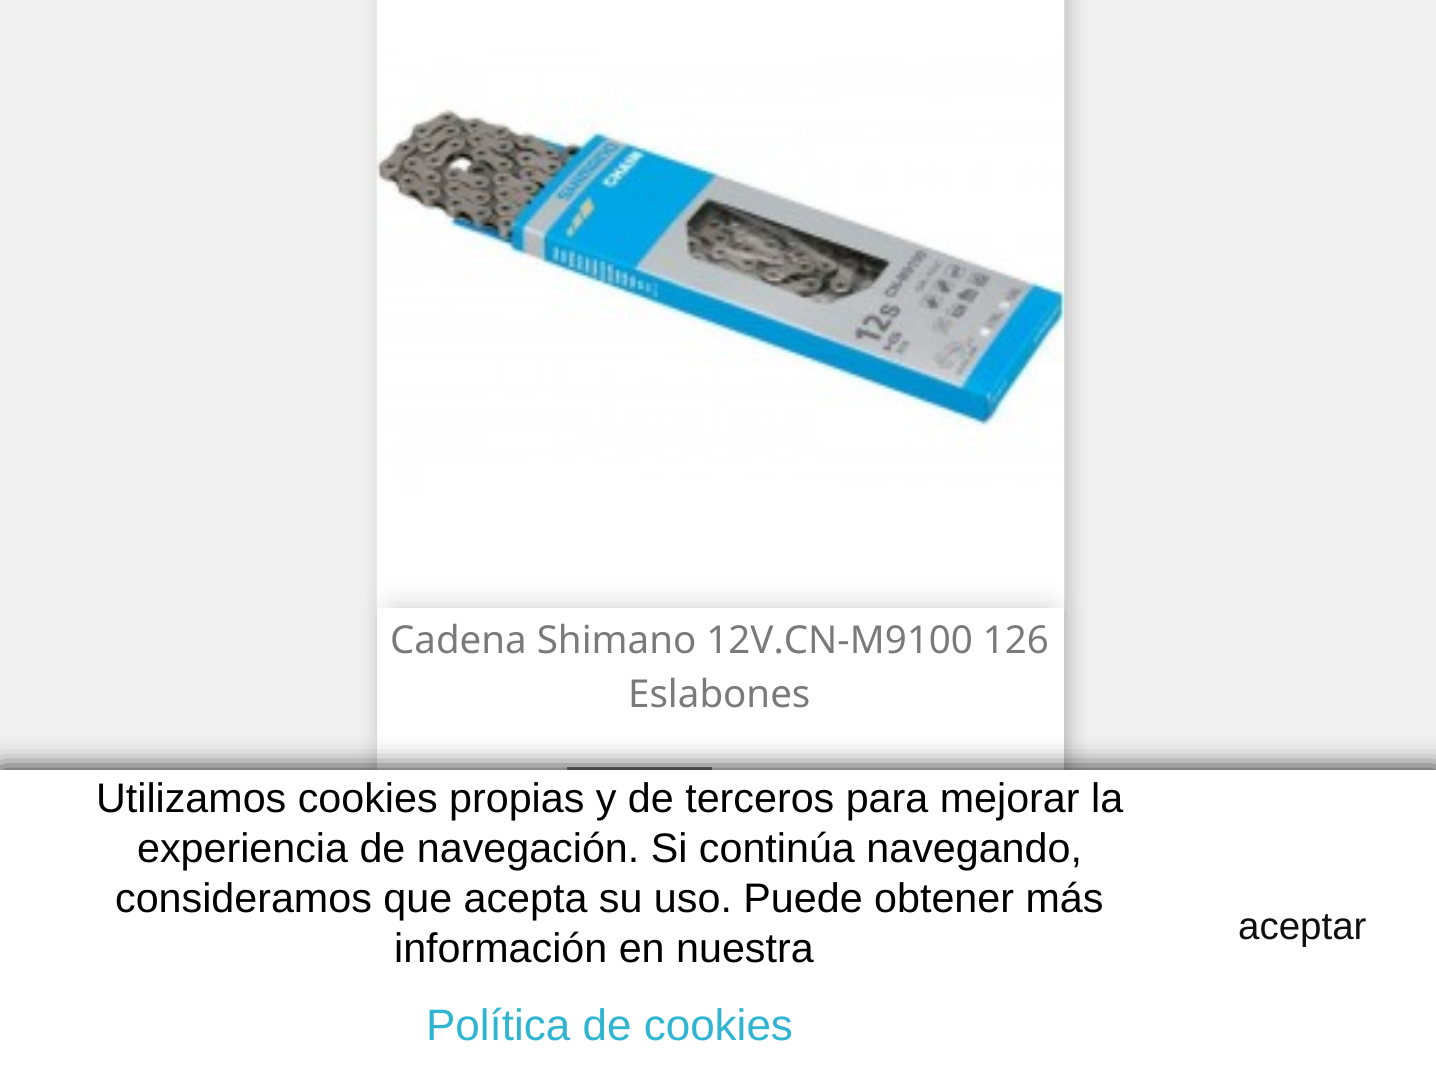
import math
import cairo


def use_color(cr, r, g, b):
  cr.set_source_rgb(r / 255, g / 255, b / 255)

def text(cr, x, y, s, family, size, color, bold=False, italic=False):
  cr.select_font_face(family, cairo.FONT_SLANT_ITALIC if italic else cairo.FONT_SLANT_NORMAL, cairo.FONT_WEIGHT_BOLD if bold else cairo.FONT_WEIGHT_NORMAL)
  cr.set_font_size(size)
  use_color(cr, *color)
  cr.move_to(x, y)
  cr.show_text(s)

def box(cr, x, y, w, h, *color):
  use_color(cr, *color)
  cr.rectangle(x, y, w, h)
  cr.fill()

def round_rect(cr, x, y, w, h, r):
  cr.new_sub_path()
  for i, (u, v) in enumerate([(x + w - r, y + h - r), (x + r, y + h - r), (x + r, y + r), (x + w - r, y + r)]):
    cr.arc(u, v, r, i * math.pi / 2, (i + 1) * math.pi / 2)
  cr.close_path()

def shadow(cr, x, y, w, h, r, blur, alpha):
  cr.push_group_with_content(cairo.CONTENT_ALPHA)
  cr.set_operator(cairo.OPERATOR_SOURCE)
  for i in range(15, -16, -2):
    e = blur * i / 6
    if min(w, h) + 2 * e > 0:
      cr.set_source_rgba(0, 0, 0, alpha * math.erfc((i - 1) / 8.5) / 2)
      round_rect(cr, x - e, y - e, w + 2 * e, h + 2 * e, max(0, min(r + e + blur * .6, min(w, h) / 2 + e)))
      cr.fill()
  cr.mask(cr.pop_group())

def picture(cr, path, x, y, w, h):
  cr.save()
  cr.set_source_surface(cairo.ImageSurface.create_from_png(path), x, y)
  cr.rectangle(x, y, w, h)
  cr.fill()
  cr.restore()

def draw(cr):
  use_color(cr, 241, 241, 241)
  cr.paint()
  use_color(cr, 0, 0, 0)
  shadow(cr, 382, -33, 688, 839, 0, 11, 0.2)
  box(cr, 377, 610, 687, 160, 255, 255, 255)
  picture(cr, "img_01.png", 376, 0, 689, 611)
  cr.save()
  cr.set_fill_rule(cairo.FILL_RULE_EVEN_ODD)
  cr.new_path()
  cr.move_to(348, 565)
  cr.line_to(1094, 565)
  cr.line_to(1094, 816)
  cr.line_to(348, 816)
  cr.close_path()
  cr.move_to(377, 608)
  cr.line_to(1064, 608)
  cr.line_to(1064, 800)
  cr.line_to(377, 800)
  cr.close_path()
  cr.clip()
  use_color(cr, 0, 0, 0)
  shadow(cr, 391, 608, 660, 165, 0, 14, 0.2)
  cr.restore()
  box(cr, 567, 767, 145, 3, 122, 122, 122)
  use_color(cr, 23, 23, 23)
  shadow(cr, 0, 770, 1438, 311, 0, 14, 1)
  box(cr, 0, 770, 1436, 309, 255, 255, 255)
  text(cr, 390, 653, "Cadena Shimano 12V.CN-M9100 126", "Noto Sans", 38.5, (122, 122, 122))
  text(cr, 628, 707, "Eslabones", "Noto Sans", 38.5, (122, 122, 122))
  text(cr, 96, 812, "Utilizamos cookies propias y de terceros para mejorar la", "Liberation Sans", 41.25, (0, 0, 0))
  text(cr, 137, 862, "experiencia de navegación. Si continúa navegando,", "Liberation Sans", 41.25, (0, 0, 0))
  text(cr, 115, 912, "consideramos que acepta su uso. Puede obtener más", "Liberation Sans", 41.25, (0, 0, 0))
  text(cr, 394, 962, "información en nuestra", "Liberation Sans", 41.25, (0, 0, 0))
  text(cr, 426, 1040, "Política de cookies", "Liberation Sans", 44, (47, 181, 210))
  text(cr, 1238, 939, "aceptar", "Liberation Sans", 38.5, (15, 15, 15))


surface = cairo.ImageSurface(cairo.FORMAT_RGB24, 1436, 1079)
cr = cairo.Context(surface)
options = cairo.FontOptions()
options.set_hint_metrics(cairo.HINT_METRICS_OFF)
options.set_hint_style(cairo.HINT_STYLE_NONE)
cr.set_font_options(options)
cr.set_miter_limit(4)
draw(cr)
surface.write_to_png("out.png")
